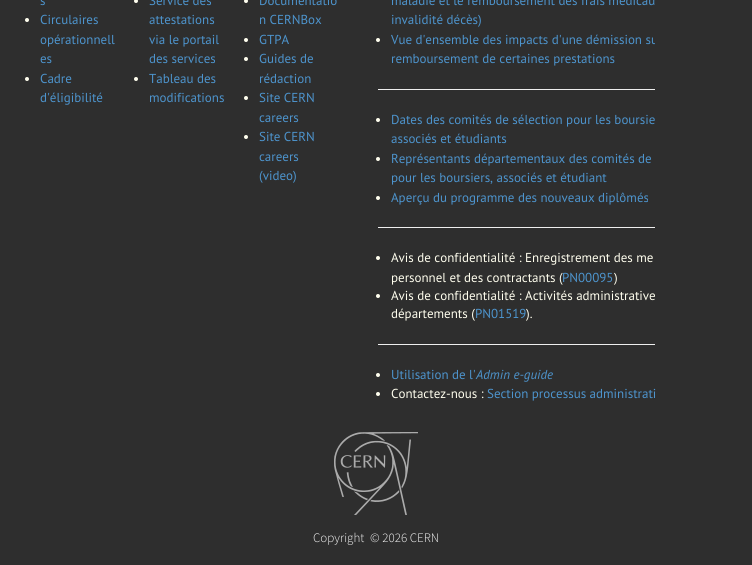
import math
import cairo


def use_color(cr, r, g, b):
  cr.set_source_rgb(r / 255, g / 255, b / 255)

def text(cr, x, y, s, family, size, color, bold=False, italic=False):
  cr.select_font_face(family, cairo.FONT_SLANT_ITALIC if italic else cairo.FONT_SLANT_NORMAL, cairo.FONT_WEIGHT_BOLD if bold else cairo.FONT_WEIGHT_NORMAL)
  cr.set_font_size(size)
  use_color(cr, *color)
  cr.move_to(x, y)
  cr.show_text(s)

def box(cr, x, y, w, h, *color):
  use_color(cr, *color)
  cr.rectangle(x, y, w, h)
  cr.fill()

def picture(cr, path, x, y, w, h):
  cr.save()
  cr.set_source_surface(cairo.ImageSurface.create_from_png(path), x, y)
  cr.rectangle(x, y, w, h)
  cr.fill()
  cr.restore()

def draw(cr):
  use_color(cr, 46, 46, 46)
  cr.paint()
  use_color(cr, 255, 254, 238)
  cr.arc(27, 20, 2, 0, 2 * math.pi)
  cr.fill()
  cr.arc(27, 79, 2, 0, 2 * math.pi)
  cr.fill()
  cr.arc(136, 1, 2, 0, 2 * math.pi)
  cr.fill()
  cr.arc(136, 79, 2, 0, 2 * math.pi)
  cr.fill()
  cr.arc(246, 1, 2, 0, 2 * math.pi)
  cr.fill()
  cr.arc(246, 40, 2, 0, 2 * math.pi)
  cr.fill()
  cr.arc(246, 59, 2, 0, 2 * math.pi)
  cr.fill()
  cr.arc(246, 98, 2, 0, 2 * math.pi)
  cr.fill()
  cr.arc(246, 137, 2, 0, 2 * math.pi)
  cr.fill()
  cr.arc(378, 40, 2, 0, 2 * math.pi)
  cr.fill()
  box(cr, 378, 89, 277, 1, 238, 238, 238)
  use_color(cr, 255, 254, 238)
  cr.arc(378, 120, 2, 0, 2 * math.pi)
  cr.fill()
  cr.arc(378, 159, 2, 0, 2 * math.pi)
  cr.fill()
  cr.arc(378, 198, 2, 0, 2 * math.pi)
  cr.fill()
  box(cr, 378, 227, 277, 1, 238, 238, 238)
  use_color(cr, 255, 254, 238)
  cr.arc(378, 258, 2, 0, 2 * math.pi)
  cr.fill()
  cr.arc(378, 296, 2, 0, 2 * math.pi)
  cr.fill()
  box(cr, 378, 344, 277, 1, 238, 238, 238)
  use_color(cr, 255, 254, 238)
  cr.arc(378, 375, 2, 0, 2 * math.pi)
  cr.fill()
  cr.arc(378, 394, 2, 0, 2 * math.pi)
  cr.fill()
  picture(cr, "img_01.png", 334, 432, 84, 83)
  text(cr, 40, 5, "s", "PT Sans", 13, (77, 148, 205))
  text(cr, 40, 24, "Circulaires", "PT Sans", 13, (77, 148, 205))
  text(cr, 40, 44, "opérationnell", "PT Sans", 13, (77, 148, 205))
  text(cr, 40, 63, "es", "PT Sans", 13, (77, 148, 205))
  text(cr, 40, 83, "Cadre", "PT Sans", 13, (77, 148, 205))
  text(cr, 40, 102, "d'éligibilité", "PT Sans", 13, (77, 148, 205))
  text(cr, 149, 5, "Service des", "PT Sans", 13, (77, 148, 205))
  text(cr, 149, 24, "attestations", "PT Sans", 13, (77, 148, 205))
  text(cr, 149, 44, "via le portail", "PT Sans", 13, (77, 148, 205))
  text(cr, 149, 63, "des services", "PT Sans", 13, (77, 148, 205))
  text(cr, 149, 83, "Tableau des", "PT Sans", 13, (77, 148, 205))
  text(cr, 149, 102, "modifications", "PT Sans", 13, (77, 148, 205))
  text(cr, 259, 5, "Documentatio", "PT Sans", 13, (77, 148, 205))
  text(cr, 259, 24, "n CERNBox", "PT Sans", 13, (77, 148, 205))
  text(cr, 259, 44, "GTPA", "PT Sans", 13, (77, 148, 205))
  text(cr, 259, 63, "Guides de", "PT Sans", 13, (77, 148, 205))
  text(cr, 259, 83, "rédaction", "PT Sans", 13, (77, 148, 205))
  text(cr, 259, 102, "Site CERN", "PT Sans", 13, (77, 148, 205))
  text(cr, 259, 122, "careers", "PT Sans", 13, (77, 148, 205))
  text(cr, 259, 141, "Site CERN", "PT Sans", 13, (77, 148, 205))
  text(cr, 259, 161, "careers", "PT Sans", 13, (77, 148, 205))
  text(cr, 259, 180, "(video)", "PT Sans", 13, (77, 148, 205))
  text(cr, 391, 5, "maladie et le remboursement des frais médicau", "PT Sans", 13, (77, 148, 205))
  text(cr, 391, 24, "invalidité décès)", "PT Sans", 13, (77, 148, 205))
  cr.save()
  cr.rectangle(19, 0, 636, 422)
  cr.clip()
  text(cr, 391, 44, "Vue d'ensemble des impacts d'une démission su", "PT Sans", 13, (77, 148, 205))
  cr.restore()
  text(cr, 391, 63, "remboursement de certaines prestations", "PT Sans", 13, (77, 148, 205))
  text(cr, 391, 124, "Dates des comités de sélection pour les boursie", "PT Sans", 13, (77, 148, 205))
  text(cr, 391, 143, "associés et étudiants", "PT Sans", 13, (77, 148, 205))
  text(cr, 391, 163, "Représentants départementaux des comités de", "PT Sans", 13, (77, 148, 205))
  text(cr, 391, 182, "pour les boursiers, associés et étudiant", "PT Sans", 13, (77, 148, 205))
  text(cr, 391, 202, "Aperçu du programme des nouveaux diplômés", "PT Sans", 13, (77, 148, 205))
  text(cr, 391, 262, "Avis de confidentialité : Enregistrement des me", "PT Sans", 13, (255, 254, 238))
  text(cr, 391, 282, "personnel et des contractants (", "PT Sans", 13, (255, 254, 238))
  text(cr, 562, 282, "PN00095", "PT Sans", 13, (77, 148, 205))
  text(cr, 614, 282, ")", "PT Sans", 13, (255, 254, 238))
  text(cr, 391, 300, "Avis de confidentialité : Activités administrative", "PT Sans", 13, (255, 254, 238))
  text(cr, 391, 318, "départements (", "PT Sans", 13, (255, 254, 238))
  text(cr, 475, 318, "PN01519", "PT Sans", 13, (77, 148, 205))
  text(cr, 526, 318, ").", "PT Sans", 13, (255, 254, 238))
  text(cr, 391, 379, "Utilisation de l'", "PT Sans", 13, (77, 148, 205))
  text(cr, 476, 379, "Admin e-guide", "PT Sans", 13, (77, 148, 205), italic=True)
  text(cr, 391, 398, "Contactez-nous :", "PT Sans", 13, (255, 254, 238))
  text(cr, 487, 398, "Section processus administrati", "PT Sans", 13, (77, 148, 205))
  text(cr, 313, 542, "Copyright", "Source Sans Pro Light", 13, (248, 248, 248))
  text(cr, 370, 542, "© 2026 CERN", "Source Sans Pro Light", 13, (248, 248, 248))


surface = cairo.ImageSurface(cairo.FORMAT_RGB24, 752, 565)
cr = cairo.Context(surface)
options = cairo.FontOptions()
options.set_hint_metrics(cairo.HINT_METRICS_OFF)
options.set_hint_style(cairo.HINT_STYLE_NONE)
cr.set_font_options(options)
cr.set_miter_limit(4)
draw(cr)
surface.write_to_png("out.png")
